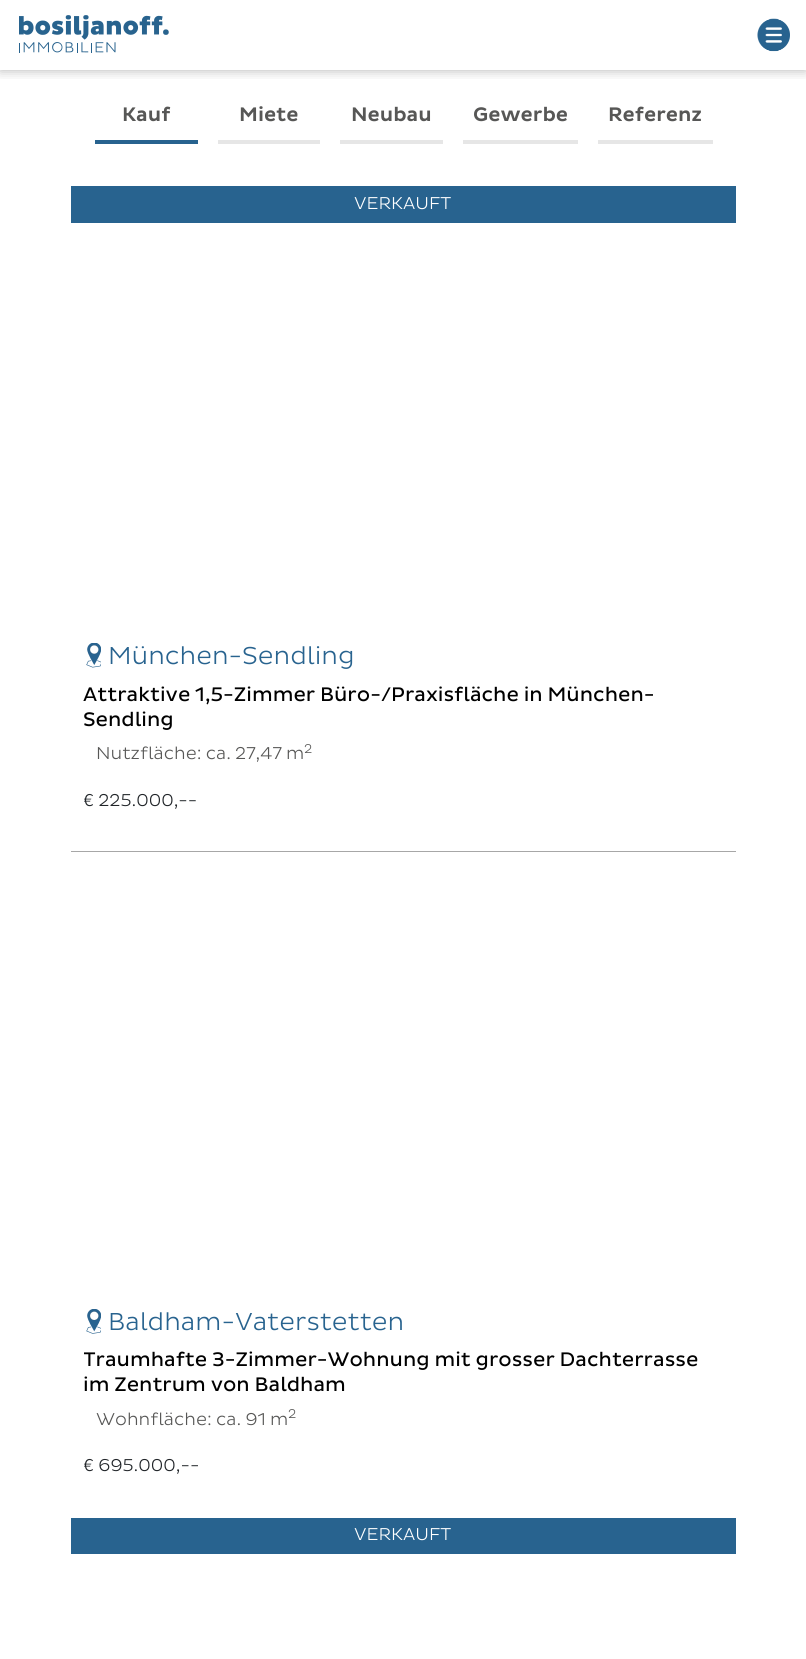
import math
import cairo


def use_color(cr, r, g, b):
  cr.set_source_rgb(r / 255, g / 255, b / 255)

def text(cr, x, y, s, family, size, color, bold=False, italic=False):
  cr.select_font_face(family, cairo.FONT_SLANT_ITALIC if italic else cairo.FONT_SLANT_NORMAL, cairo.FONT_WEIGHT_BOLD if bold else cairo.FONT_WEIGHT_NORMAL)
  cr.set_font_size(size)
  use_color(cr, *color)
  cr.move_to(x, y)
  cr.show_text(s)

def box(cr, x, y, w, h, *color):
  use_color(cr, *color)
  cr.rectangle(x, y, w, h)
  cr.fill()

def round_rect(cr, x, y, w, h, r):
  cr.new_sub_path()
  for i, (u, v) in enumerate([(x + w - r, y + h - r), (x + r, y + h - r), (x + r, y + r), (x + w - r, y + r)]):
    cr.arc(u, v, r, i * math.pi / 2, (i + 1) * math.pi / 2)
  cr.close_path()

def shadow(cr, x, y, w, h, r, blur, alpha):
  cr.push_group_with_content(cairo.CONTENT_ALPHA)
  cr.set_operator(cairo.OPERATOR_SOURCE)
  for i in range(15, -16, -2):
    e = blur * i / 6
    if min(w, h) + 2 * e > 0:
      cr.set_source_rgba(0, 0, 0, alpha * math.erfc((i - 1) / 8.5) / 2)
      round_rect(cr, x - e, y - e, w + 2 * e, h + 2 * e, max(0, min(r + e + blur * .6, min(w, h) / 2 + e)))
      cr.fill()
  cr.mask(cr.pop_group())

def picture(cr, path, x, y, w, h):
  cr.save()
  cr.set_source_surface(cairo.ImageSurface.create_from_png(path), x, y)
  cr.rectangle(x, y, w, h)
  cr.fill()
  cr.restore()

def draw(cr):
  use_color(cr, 255, 255, 255)
  cr.paint()
  cr.save()
  cr.rectangle(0, 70, 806, 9)
  cr.clip()
  use_color(cr, 0, 0, 0)
  shadow(cr, 0, 0, 806, 70, 0, 6, 0.3)
  cr.restore()
  picture(cr, "img_01.png", 19, 15, 150, 38)
  picture(cr, "img_02.png", 757, 18, 33, 34)
  box(cr, 95, 140, 103, 4, 40, 99, 143)
  box(cr, 218, 140, 102, 4, 230, 230, 230)
  box(cr, 340, 140, 103, 4, 230, 230, 230)
  box(cr, 463, 140, 115, 4, 230, 230, 230)
  box(cr, 598, 140, 115, 4, 230, 230, 230)
  box(cr, 71, 186, 665, 37, 40, 99, 143)
  picture(cr, "img_03.png", 86, 643, 15, 25)
  box(cr, 71, 851, 665, 1, 167, 167, 167)
  picture(cr, "img_04.png", 86, 1309, 15, 25)
  box(cr, 71, 1518, 665, 36, 40, 99, 143)
  text(cr, 122, 121, "Kauf", "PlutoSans", 20, (87, 87, 86))
  text(cr, 239, 121, "Miete", "PlutoSans", 20, (87, 87, 86))
  text(cr, 351, 121, "Neubau", "PlutoSans", 20, (87, 87, 86))
  text(cr, 473, 121, "Gewerbe", "PlutoSans", 20, (87, 87, 86))
  text(cr, 608, 121, "Referenz", "PlutoSans", 20, (87, 87, 86))
  text(cr, 354, 209, "VERKAUFT", "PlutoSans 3", 17.5, (255, 255, 255))
  text(cr, 108, 664, "München-Sendling", "PlutoSans 3", 25, (40, 99, 143))
  text(cr, 83, 701, "Attraktive 1,5-Zimmer Büro-/Praxisfläche in München-", "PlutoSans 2", 20, (0, 0, 0))
  text(cr, 83, 726, "Sendling", "PlutoSans 2", 20, (0, 0, 0))
  text(cr, 96, 759, "Nutzfläche: ca. 27,47 m", "PlutoSans 3", 17.5, (87, 87, 86))
  text(cr, 304, 753, "2", "PlutoSans 3", 13, (87, 87, 86))
  text(cr, 83, 806, "€ 225.000,--", "PlutoSans 3", 17.5, (33, 37, 41))
  text(cr, 108, 1330, "Baldham-Vaterstetten", "PlutoSans 3", 25, (40, 99, 143))
  cr.save()
  cr.rectangle(84, 1348, 640, 50)
  cr.clip()
  text(cr, 83, 1366, "Traumhafte 3-Zimmer-Wohnung mit grosser Dachterrasse", "PlutoSans 2", 20, (0, 0, 0))
  cr.restore()
  text(cr, 83, 1391, "im Zentrum von Baldham", "PlutoSans 2", 20, (0, 0, 0))
  text(cr, 96, 1425, "Wohnfläche: ca. 91 m", "PlutoSans 3", 17.5, (87, 87, 86))
  text(cr, 288, 1418, "2", "PlutoSans 3", 13, (87, 87, 86))
  text(cr, 83, 1471, "€ 695.000,--", "PlutoSans 3", 17.5, (33, 37, 41))
  text(cr, 354, 1540, "VERKAUFT", "PlutoSans 3", 17.5, (255, 255, 255))


surface = cairo.ImageSurface(cairo.FORMAT_RGB24, 806, 1659)
cr = cairo.Context(surface)
options = cairo.FontOptions()
options.set_hint_metrics(cairo.HINT_METRICS_OFF)
options.set_hint_style(cairo.HINT_STYLE_NONE)
cr.set_font_options(options)
cr.set_miter_limit(4)
draw(cr)
surface.write_to_png("out.png")
